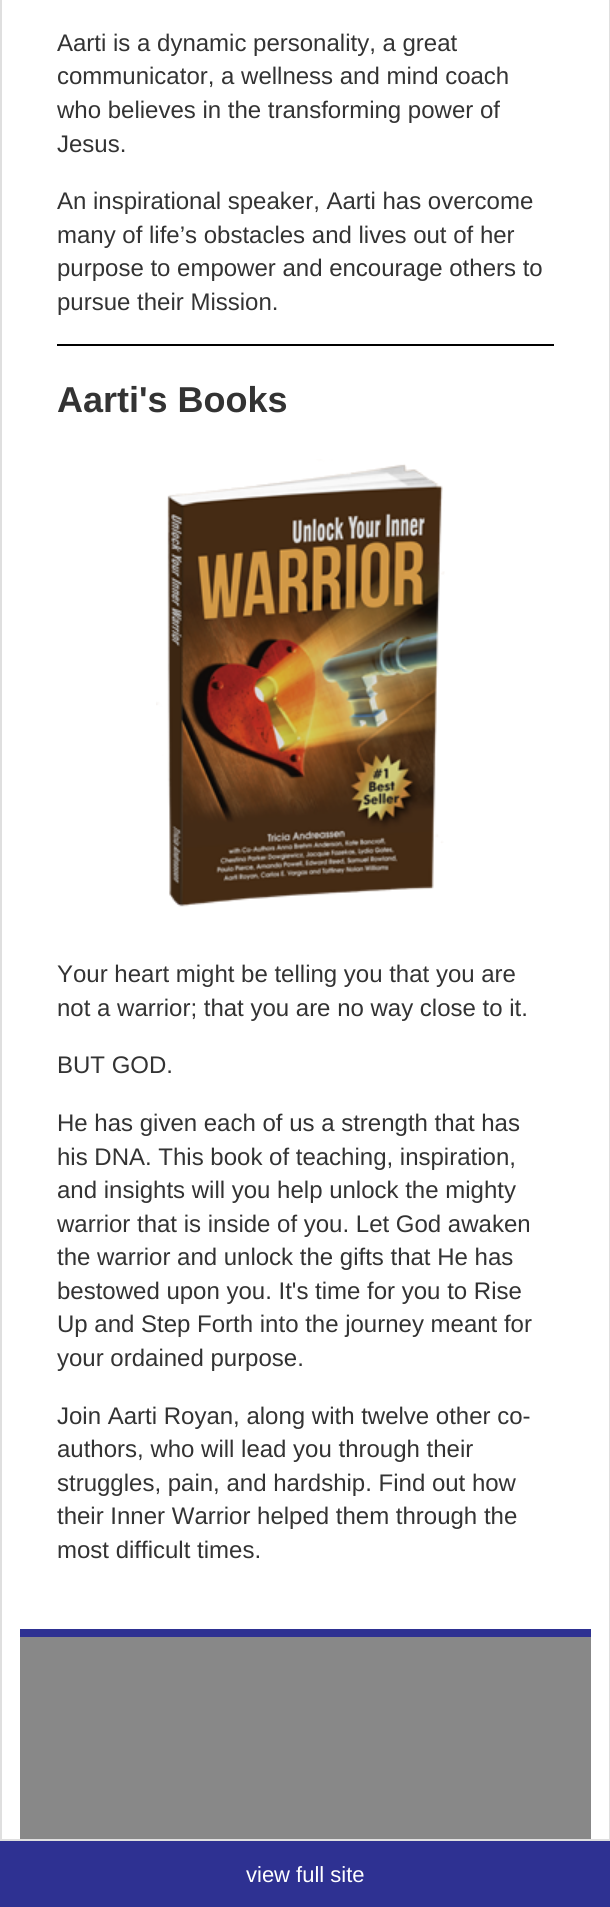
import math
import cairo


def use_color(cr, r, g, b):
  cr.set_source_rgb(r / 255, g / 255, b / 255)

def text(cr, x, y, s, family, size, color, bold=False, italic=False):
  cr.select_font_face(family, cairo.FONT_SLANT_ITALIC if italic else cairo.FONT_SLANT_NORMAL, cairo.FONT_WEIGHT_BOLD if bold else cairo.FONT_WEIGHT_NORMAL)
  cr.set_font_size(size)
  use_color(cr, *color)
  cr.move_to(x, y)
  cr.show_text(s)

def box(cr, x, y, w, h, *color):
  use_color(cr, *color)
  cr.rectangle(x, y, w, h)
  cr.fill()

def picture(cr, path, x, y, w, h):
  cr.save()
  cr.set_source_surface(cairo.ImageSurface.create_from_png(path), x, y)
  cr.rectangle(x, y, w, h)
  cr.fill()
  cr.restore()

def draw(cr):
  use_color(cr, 223, 223, 223)
  cr.paint()
  box(cr, 2, 0, 607, 1839, 255, 255, 255)
  box(cr, 57, 344, 497, 2, 0, 0, 0)
  picture(cr, "img_01.png", 156, 459, 289, 448)
  box(cr, 20, 1637, 571, 202, 136, 136, 136)
  box(cr, 20, 1629, 571, 8, 46, 49, 146)
  box(cr, 0, 1841, 610, 66, 46, 49, 146)
  text(cr, 57, 51, "Aarti is a dynamic personality, a great", "Liberation Sans", 24, (51, 51, 51))
  text(cr, 57, 84, "communicator, a wellness and mind coach", "Liberation Sans", 24, (51, 51, 51))
  text(cr, 57, 118, "who believes in the transforming power of", "Liberation Sans", 24, (51, 51, 51))
  text(cr, 57, 152, "Jesus.", "Liberation Sans", 24, (51, 51, 51))
  text(cr, 57, 209, "An inspirational speaker, Aarti has overcome", "Liberation Sans", 24, (51, 51, 51))
  text(cr, 57, 243, "many of life’s obstacles and lives out of her", "Liberation Sans", 24, (51, 51, 51))
  text(cr, 57, 276, "purpose to empower and encourage others to", "Liberation Sans", 24, (51, 51, 51))
  text(cr, 57, 310, "pursue their Mission.", "Liberation Sans", 24, (51, 51, 51))
  text(cr, 57, 412, "Aarti's Books", "Liberation Sans", 36, (51, 51, 51), bold=True)
  text(cr, 57, 982, "Your heart might be telling you that you are", "Liberation Sans", 24, (51, 51, 51))
  text(cr, 57, 1016, "not a warrior; that you are no way close to it.", "Liberation Sans", 24, (51, 51, 51))
  text(cr, 57, 1073, "BUT GOD.", "Liberation Sans", 24, (51, 51, 51))
  text(cr, 57, 1131, "He has given each of us a strength that has", "Liberation Sans", 24, (51, 51, 51))
  text(cr, 57, 1165, "his DNA. This book of teaching, inspiration,", "Liberation Sans", 24, (51, 51, 51))
  text(cr, 57, 1198, "and insights will you help unlock the mighty", "Liberation Sans", 24, (51, 51, 51))
  text(cr, 57, 1232, "warrior that is inside of you. Let God awaken", "Liberation Sans", 24, (51, 51, 51))
  text(cr, 57, 1265, "the warrior and unlock the gifts that He has", "Liberation Sans", 24, (51, 51, 51))
  text(cr, 57, 1299, "bestowed upon you. It's time for you to Rise", "Liberation Sans", 24, (51, 51, 51))
  text(cr, 57, 1332, "Up and Step Forth into the journey meant for", "Liberation Sans", 24, (51, 51, 51))
  text(cr, 57, 1366, "your ordained purpose.", "Liberation Sans", 24, (51, 51, 51))
  text(cr, 57, 1424, "Join Aarti Royan, along with twelve other co-", "Liberation Sans", 24, (51, 51, 51))
  text(cr, 57, 1457, "authors, who will lead you through their", "Liberation Sans", 24, (51, 51, 51))
  text(cr, 57, 1491, "struggles, pain, and hardship. Find out how", "Liberation Sans", 24, (51, 51, 51))
  text(cr, 57, 1524, "their Inner Warrior helped them through the", "Liberation Sans", 24, (51, 51, 51))
  text(cr, 57, 1558, "most difficult times.", "Liberation Sans", 24, (51, 51, 51))
  text(cr, 246, 1882, "view full site", "Liberation Sans", 22, (255, 255, 255))


surface = cairo.ImageSurface(cairo.FORMAT_RGB24, 610, 1907)
cr = cairo.Context(surface)
options = cairo.FontOptions()
options.set_hint_metrics(cairo.HINT_METRICS_OFF)
options.set_hint_style(cairo.HINT_STYLE_NONE)
cr.set_font_options(options)
cr.set_miter_limit(4)
draw(cr)
surface.write_to_png("out.png")
